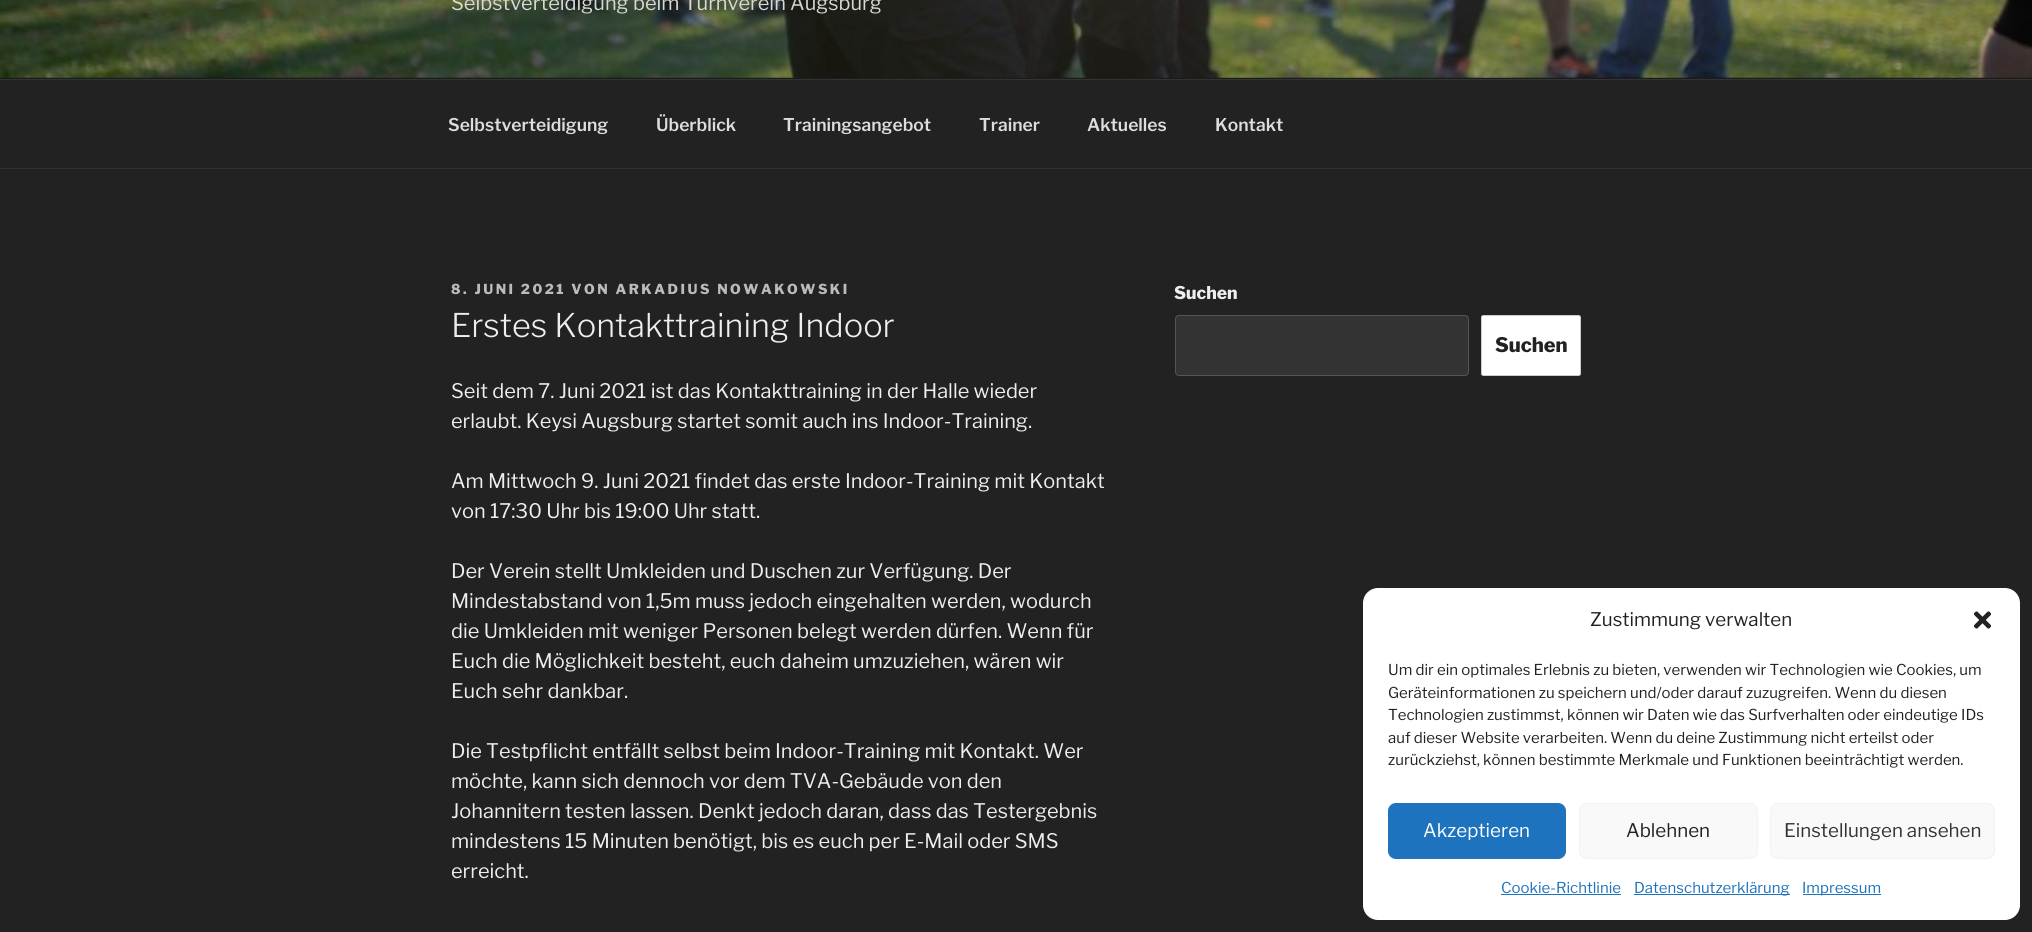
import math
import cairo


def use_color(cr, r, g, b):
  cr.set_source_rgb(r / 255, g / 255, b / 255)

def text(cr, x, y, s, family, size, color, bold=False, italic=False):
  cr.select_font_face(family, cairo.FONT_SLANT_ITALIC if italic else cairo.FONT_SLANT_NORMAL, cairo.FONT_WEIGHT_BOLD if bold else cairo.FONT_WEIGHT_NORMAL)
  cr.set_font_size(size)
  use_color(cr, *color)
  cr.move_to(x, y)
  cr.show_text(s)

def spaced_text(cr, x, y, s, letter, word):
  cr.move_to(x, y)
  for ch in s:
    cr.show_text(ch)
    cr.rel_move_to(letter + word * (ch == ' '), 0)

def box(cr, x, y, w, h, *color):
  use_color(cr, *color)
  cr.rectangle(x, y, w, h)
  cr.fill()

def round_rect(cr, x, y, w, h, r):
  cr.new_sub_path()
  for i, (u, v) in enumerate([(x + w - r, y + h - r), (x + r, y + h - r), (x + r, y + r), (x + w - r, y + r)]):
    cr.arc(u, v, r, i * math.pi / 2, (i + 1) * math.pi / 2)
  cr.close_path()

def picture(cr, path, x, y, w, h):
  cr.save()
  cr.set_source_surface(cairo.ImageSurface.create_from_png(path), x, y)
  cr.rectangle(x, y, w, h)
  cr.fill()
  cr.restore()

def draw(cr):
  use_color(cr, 34, 34, 34)
  cr.paint()
  box(cr, 0, 77, 2032, 2, 38, 38, 38)
  picture(cr, "img_01.png", 0, 0, 2032, 78)
  gradient = cairo.LinearGradient(1016, -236, 1016, 79)
  gradient.add_color_stop_rgba(0, 0, 0, 0, 0)
  gradient.add_color_stop_rgba(0.75, 0, 0, 0, 0.3)
  gradient.add_color_stop_rgba(1, 0, 0, 0, 0.3)
  cr.set_source(gradient)
  cr.rectangle(0, 0, 2032, 79)
  cr.fill()
  box(cr, 0, 79, 2032, 1, 51, 51, 51)
  box(cr, 0, 168, 2032, 1, 51, 51, 51)
  round_rect(cr, 1175.5, 315.5, 293, 60, 3.5)
  cr.fill_preserve()
  use_color(cr, 85, 85, 85)
  cr.set_line_width(1)
  cr.stroke()
  use_color(cr, 255, 255, 255)
  round_rect(cr, 1481.5, 315.5, 99, 60, 2)
  cr.fill_preserve()
  use_color(cr, 204, 204, 204)
  cr.stroke()
  use_color(cr, 255, 255, 255)
  round_rect(cr, 1363, 588, 657, 332, 15)
  cr.fill()
  picture(cr, "img_02.png", 1973, 611, 19, 18)
  use_color(cr, 30, 115, 190)
  round_rect(cr, 1388.5, 803.5, 177, 55, 7.5)
  cr.fill_preserve()
  cr.stroke()
  use_color(cr, 249, 249, 249)
  round_rect(cr, 1579.5, 803.5, 178, 55, 7.5)
  cr.fill_preserve()
  use_color(cr, 242, 242, 242)
  cr.stroke()
  use_color(cr, 249, 249, 249)
  round_rect(cr, 1770.5, 803.5, 224, 55, 7.5)
  cr.fill_preserve()
  use_color(cr, 242, 242, 242)
  cr.stroke()
  box(cr, 1501, 894, 120, 1, 30, 115, 190)
  box(cr, 1634, 894, 156, 1, 30, 115, 190)
  box(cr, 1803, 894, 78, 1, 30, 115, 190)
  text(cr, 451, 10, "Selbstverteidigung beim Turnverein Augsburg", "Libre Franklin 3 Thin", 20, (214, 216, 213))
  text(cr, 448, 131, "Selbstverteidigung", "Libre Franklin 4 Thin", 17.5, (221, 221, 221))
  text(cr, 656, 131, "Überblick", "Libre Franklin 4 Thin", 17.5, (221, 221, 221))
  text(cr, 783, 131, "Trainingsangebot", "Libre Franklin 4 Thin", 17.5, (221, 221, 221))
  text(cr, 979, 131, "Trainer", "Libre Franklin 4 Thin", 17.5, (221, 221, 221))
  text(cr, 1087, 131, "Aktuelles", "Libre Franklin 4 Thin", 17.5, (221, 221, 221))
  text(cr, 1215, 131, "Kontakt", "Libre Franklin 4 Thin", 17.5, (221, 221, 221))
  cr.select_font_face("Libre Franklin Thin")
  cr.set_font_size(13.75)
  use_color(cr, 187, 187, 187)
  spaced_text(cr, 451, 294, "8. JUNI 2021 VON ARKADIUS NOWAKOWSKI", 2.5, 0)
  text(cr, 451, 337, "Erstes Kontakttraining Indoor", "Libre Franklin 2 Thin", 32.5, (238, 238, 238))
  text(cr, 451, 398, "Seit dem 7. Juni 2021 ist das Kontakttraining in der Halle wieder", "Libre Franklin 3 Thin", 20, (238, 238, 238))
  text(cr, 451, 428, "erlaubt. Keysi Augsburg startet somit auch ins Indoor-Training.", "Libre Franklin 3 Thin", 20, (238, 238, 238))
  text(cr, 451, 488, "Am Mittwoch 9. Juni 2021 findet das erste Indoor-Training mit Kontakt", "Libre Franklin 3 Thin", 20, (238, 238, 238))
  text(cr, 451, 518, "von 17:30 Uhr bis 19:00 Uhr statt.", "Libre Franklin 3 Thin", 20, (238, 238, 238))
  text(cr, 451, 578, "Der Verein stellt Umkleiden und Duschen zur Verfügung. Der", "Libre Franklin 3 Thin", 20, (238, 238, 238))
  text(cr, 451, 608, "Mindestabstand von 1,5m muss jedoch eingehalten werden, wodurch", "Libre Franklin 3 Thin", 20, (238, 238, 238))
  text(cr, 451, 638, "die Umkleiden mit weniger Personen belegt werden dürfen. Wenn für", "Libre Franklin 3 Thin", 20, (238, 238, 238))
  text(cr, 451, 668, "Euch die Möglichkeit besteht, euch daheim umzuziehen, wären wir", "Libre Franklin 3 Thin", 20, (238, 238, 238))
  text(cr, 451, 698, "Euch sehr dankbar.", "Libre Franklin 3 Thin", 20, (238, 238, 238))
  text(cr, 451, 758, "Die Testpflicht entfällt selbst beim Indoor-Training mit Kontakt. Wer", "Libre Franklin 3 Thin", 20, (238, 238, 238))
  text(cr, 451, 788, "möchte, kann sich dennoch vor dem TVA-Gebäude von den", "Libre Franklin 3 Thin", 20, (238, 238, 238))
  text(cr, 451, 818, "Johannitern testen lassen. Denkt jedoch daran, dass das Testergebnis", "Libre Franklin 3 Thin", 20, (238, 238, 238))
  text(cr, 451, 848, "mindestens 15 Minuten benötigt, bis es euch per E-Mail oder SMS", "Libre Franklin 3 Thin", 20, (238, 238, 238))
  text(cr, 451, 878, "erreicht.", "Libre Franklin 3 Thin", 20, (238, 238, 238))
  text(cr, 1174, 299, "Suchen", "Libre Franklin Thin", 17.5, (238, 238, 238))
  text(cr, 1495, 352, "Suchen", "Libre Franklin Thin", 20, (34, 34, 34))
  text(cr, 1590, 626, "Zustimmung verwalten", "Libre Franklin 3 Thin", 18.75, (34, 34, 34))
  text(cr, 1388, 675, "Um dir ein optimales Erlebnis zu bieten, verwenden wir Technologien wie Cookies, um", "Libre Franklin 3 Thin", 15, (34, 34, 34))
  text(cr, 1388, 698, "Geräteinformationen zu speichern und/oder darauf zuzugreifen. Wenn du diesen", "Libre Franklin 3 Thin", 15, (34, 34, 34))
  text(cr, 1388, 720, "Technologien zustimmst, können wir Daten wie das Surfverhalten oder eindeutige IDs", "Libre Franklin 3 Thin", 15, (34, 34, 34))
  text(cr, 1388, 743, "auf dieser Website verarbeiten. Wenn du deine Zustimmung nicht erteilst oder", "Libre Franklin 3 Thin", 15, (34, 34, 34))
  text(cr, 1388, 765, "zurückziehst, können bestimmte Merkmale und Funktionen beeinträchtigt werden.", "Libre Franklin 3 Thin", 15, (34, 34, 34))
  text(cr, 1423, 837, "Akzeptieren", "Libre Franklin 3 Thin", 18.75, (255, 255, 255))
  text(cr, 1626, 837, "Ablehnen", "Libre Franklin 3 Thin", 18.75, (34, 34, 34))
  text(cr, 1784, 837, "Einstellungen ansehen", "Libre Franklin 3 Thin", 18.75, (51, 51, 51))
  text(cr, 1501, 893, "Cookie-Richtlinie", "Libre Franklin 3 Thin", 15, (30, 115, 190))
  text(cr, 1634, 893, "Datenschutzerklärung", "Libre Franklin 3 Thin", 15, (30, 115, 190))
  text(cr, 1802, 893, "Impressum", "Libre Franklin 3 Thin", 15, (30, 115, 190))


surface = cairo.ImageSurface(cairo.FORMAT_RGB24, 2032, 932)
cr = cairo.Context(surface)
options = cairo.FontOptions()
options.set_hint_metrics(cairo.HINT_METRICS_OFF)
options.set_hint_style(cairo.HINT_STYLE_NONE)
cr.set_font_options(options)
cr.set_miter_limit(4)
draw(cr)
surface.write_to_png("out.png")
